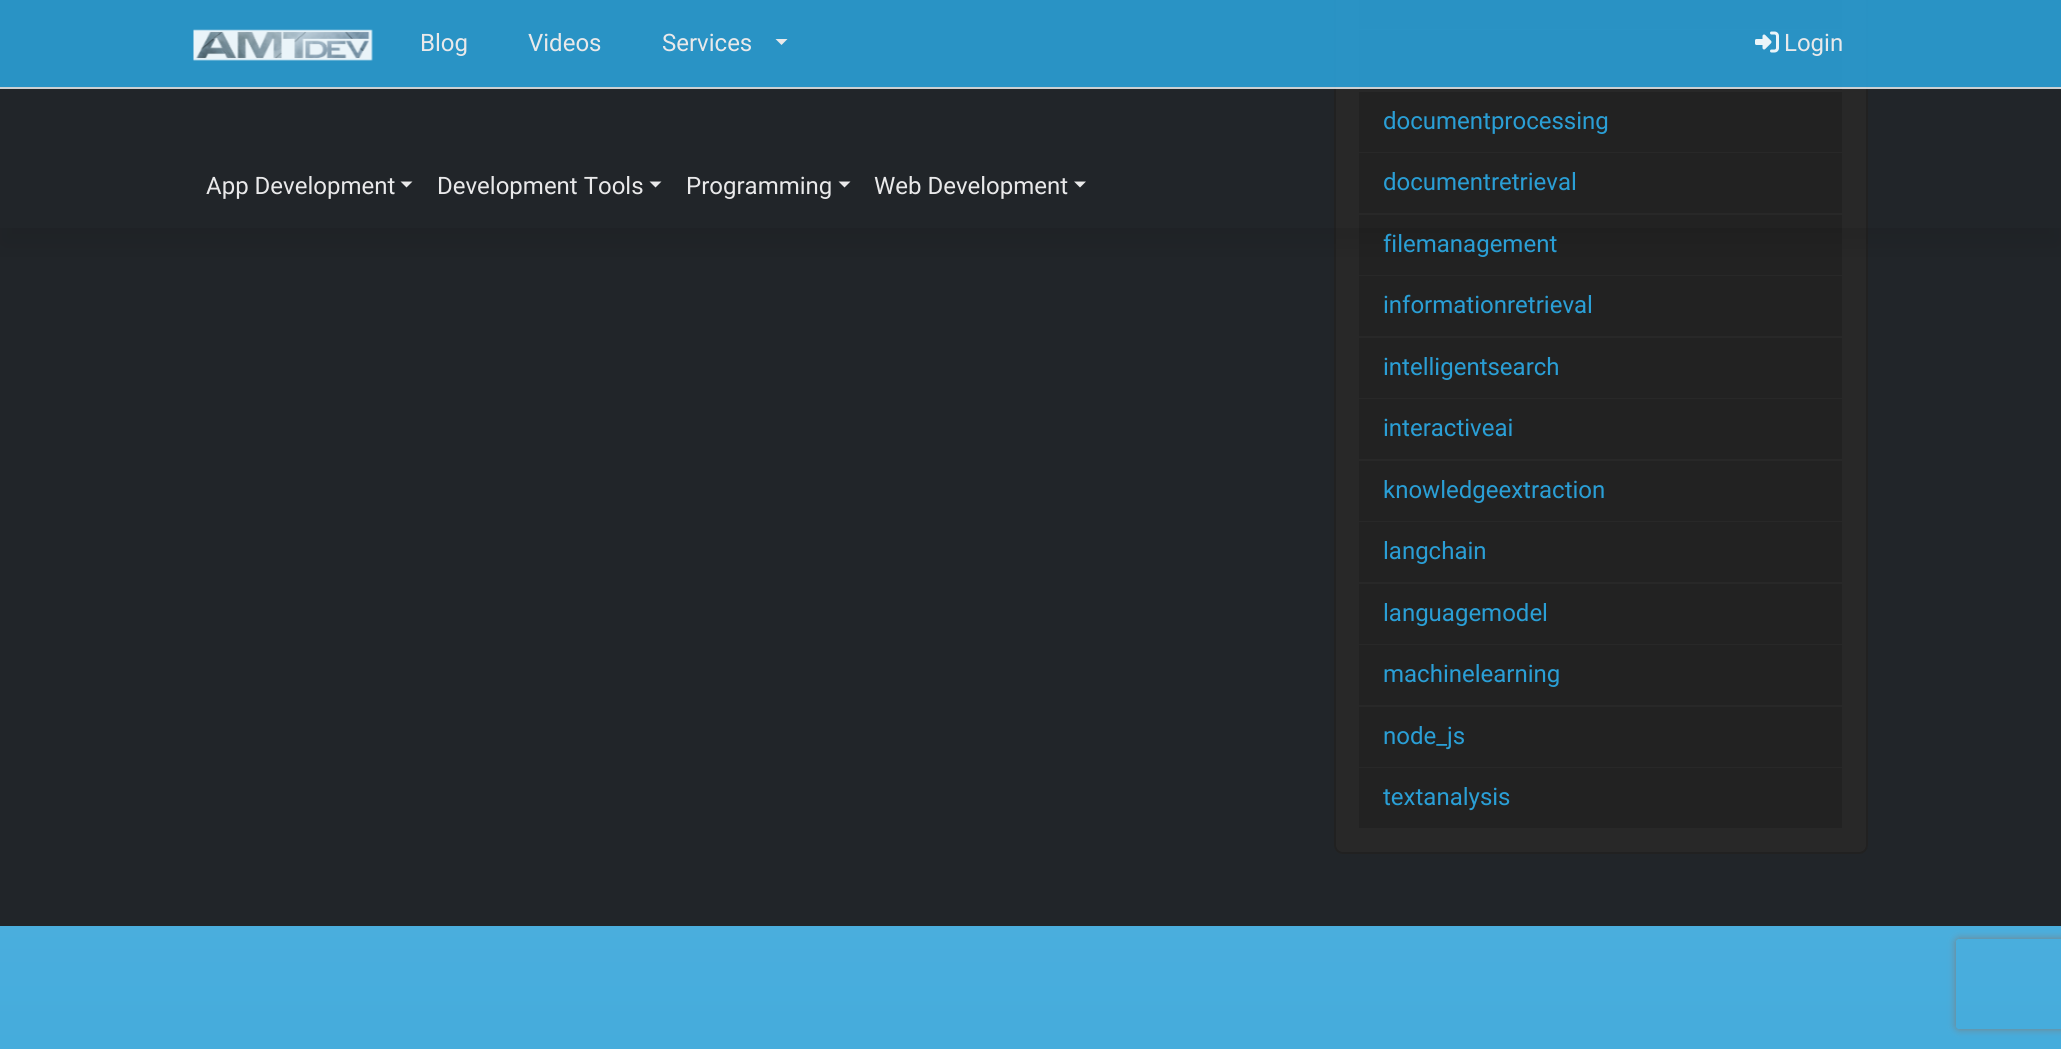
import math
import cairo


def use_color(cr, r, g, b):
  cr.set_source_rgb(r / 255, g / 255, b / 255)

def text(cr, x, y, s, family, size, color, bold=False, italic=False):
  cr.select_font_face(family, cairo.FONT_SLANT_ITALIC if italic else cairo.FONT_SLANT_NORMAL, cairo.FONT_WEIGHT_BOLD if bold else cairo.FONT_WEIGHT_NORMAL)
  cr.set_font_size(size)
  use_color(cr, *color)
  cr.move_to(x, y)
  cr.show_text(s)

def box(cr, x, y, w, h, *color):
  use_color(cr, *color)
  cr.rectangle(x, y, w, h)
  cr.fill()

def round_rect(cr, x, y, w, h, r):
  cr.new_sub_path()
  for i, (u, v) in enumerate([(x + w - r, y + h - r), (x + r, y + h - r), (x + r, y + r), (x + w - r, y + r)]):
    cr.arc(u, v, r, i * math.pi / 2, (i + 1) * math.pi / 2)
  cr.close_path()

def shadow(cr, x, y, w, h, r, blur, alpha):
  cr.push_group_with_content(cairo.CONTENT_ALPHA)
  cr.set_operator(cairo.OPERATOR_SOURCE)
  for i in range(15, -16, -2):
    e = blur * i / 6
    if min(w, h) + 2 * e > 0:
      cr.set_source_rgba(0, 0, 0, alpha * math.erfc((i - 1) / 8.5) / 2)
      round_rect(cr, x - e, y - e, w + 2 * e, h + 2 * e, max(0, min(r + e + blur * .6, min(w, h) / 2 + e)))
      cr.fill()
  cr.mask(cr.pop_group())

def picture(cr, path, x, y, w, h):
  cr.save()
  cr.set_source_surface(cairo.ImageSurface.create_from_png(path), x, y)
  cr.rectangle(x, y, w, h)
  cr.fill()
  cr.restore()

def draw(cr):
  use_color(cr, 33, 37, 41)
  cr.paint()
  use_color(cr, 40, 40, 40)
  round_rect(cr, 1334, -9, 534, 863, 9)
  cr.fill()
  round_rect(cr, 1335, -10, 532, 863, 8)
  cr.set_source_rgba(0, 0, 0, 0.18)
  cr.stroke()
  box(cr, 1359, 0, 483, 29, 34, 34, 34)
  box(cr, 1359, 30, 483, 60, 34, 34, 34)
  cr.set_source_rgba(0.165, 0.624, 0.839, 0.9)
  cr.rectangle(0, 0, 2061, 87)
  cr.fill()
  cr.set_source_rgba(0.871, 0.886, 0.902, 0.9)
  cr.rectangle(0, 87, 2061, 2)
  cr.fill()
  picture(cr, "img_01.png", 193, 29, 180, 32)
  use_color(cr, 233, 233, 234)
  cr.new_path()
  cr.move_to(775.5, 39)
  cr.line_to(787.5, 39)
  cr.line_to(781.5, 45)
  cr.close_path()
  cr.fill()
  picture(cr, "img_02.png", 1755, 31, 24, 22)
  box(cr, 1359, 92, 483, 60, 34, 34, 34)
  box(cr, 1359, 153, 483, 60, 34, 34, 34)
  box(cr, 1359, 215, 483, 60, 34, 34, 34)
  box(cr, 1359, 276, 483, 60, 34, 34, 34)
  cr.save()
  cr.rectangle(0, 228, 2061, 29)
  cr.clip()
  use_color(cr, 0, 0, 0)
  shadow(cr, 0, 162, 2061, 84, 0, 15, 0.09)
  cr.restore()
  use_color(cr, 233, 233, 234)
  cr.new_path()
  cr.move_to(400.5, 181.5)
  cr.line_to(412.5, 181.5)
  cr.line_to(406.5, 187.5)
  cr.close_path()
  cr.fill()
  cr.new_path()
  cr.move_to(649.5, 181.5)
  cr.line_to(661.5, 181.5)
  cr.line_to(655.5, 187.5)
  cr.close_path()
  cr.fill()
  cr.new_path()
  cr.move_to(838.5, 181.5)
  cr.line_to(850.5, 181.5)
  cr.line_to(844.5, 187.5)
  cr.close_path()
  cr.fill()
  cr.new_path()
  cr.move_to(1074, 181.5)
  cr.line_to(1086, 181.5)
  cr.line_to(1080, 187.5)
  cr.close_path()
  cr.fill()
  box(cr, 1359, 338, 483, 60, 34, 34, 34)
  box(cr, 1359, 399, 483, 60, 34, 34, 34)
  box(cr, 1359, 461, 483, 60, 34, 34, 34)
  box(cr, 1359, 522, 483, 60, 34, 34, 34)
  box(cr, 1359, 584, 483, 60, 34, 34, 34)
  box(cr, 1359, 645, 483, 60, 34, 34, 34)
  box(cr, 1359, 707, 483, 60, 34, 34, 34)
  box(cr, 1359, 768, 483, 60, 34, 34, 34)
  gradient = cairo.LinearGradient(1031, 926, 1031, 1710)
  gradient.add_color_stop_rgba(0, 0.29, 0.682, 0.867, 1)
  gradient.add_color_stop_rgba(1, 0.165, 0.627, 0.843, 1)
  cr.set_source(gradient)
  cr.rectangle(0, 926, 2061, 123)
  cr.fill()
  cr.save()
  cr.set_fill_rule(cairo.FILL_RULE_EVEN_ODD)
  cr.new_path()
  cr.move_to(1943, 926)
  cr.line_to(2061, 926)
  cr.line_to(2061, 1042)
  cr.line_to(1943, 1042)
  cr.close_path()
  cr.move_to(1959, 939)
  cr.line_to(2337, 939)
  cr.curve_to(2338.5, 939, 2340, 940.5, 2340, 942)
  cr.line_to(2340, 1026)
  cr.curve_to(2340, 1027.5, 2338.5, 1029, 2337, 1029)
  cr.line_to(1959, 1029)
  cr.curve_to(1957.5, 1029, 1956, 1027.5, 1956, 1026)
  cr.line_to(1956, 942)
  cr.curve_to(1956, 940.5, 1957.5, 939, 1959, 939)
  cr.close_path()
  cr.clip()
  use_color(cr, 128, 128, 128)
  shadow(cr, 1956, 939, 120, 90, 3, 4, 1)
  cr.restore()
  text(cr, 420, 51, "Blog", "Roboto", 24, (233, 233, 234))
  text(cr, 528, 51, "Videos", "Roboto", 24, (233, 233, 234))
  text(cr, 662, 51, "Services", "Roboto", 24, (233, 233, 234))
  text(cr, 1784, 51, "Login", "Roboto", 24, (233, 233, 234))
  text(cr, 206, 194, "App Development", "Roboto", 24, (233, 233, 234))
  text(cr, 437, 194, "Development Tools", "Roboto", 24, (233, 233, 234))
  text(cr, 686, 194, "Programming", "Roboto", 24, (233, 233, 234))
  text(cr, 874, 194, "Web Development", "Roboto", 24, (233, 233, 234))
  text(cr, 1383, 129, "documentprocessing", "Roboto", 24, (42, 159, 214))
  text(cr, 1383, 190, "documentretrieval", "Roboto", 24, (42, 159, 214))
  text(cr, 1383, 252, "filemanagement", "Roboto", 24, (42, 159, 214))
  text(cr, 1383, 313, "informationretrieval", "Roboto", 24, (42, 159, 214))
  text(cr, 1383, 375, "intelligentsearch", "Roboto", 24, (42, 159, 214))
  text(cr, 1383, 436, "interactiveai", "Roboto", 24, (42, 159, 214))
  text(cr, 1383, 498, "knowledgeextraction", "Roboto", 24, (42, 159, 214))
  text(cr, 1383, 559, "langchain", "Roboto", 24, (42, 159, 214))
  text(cr, 1383, 621, "languagemodel", "Roboto", 24, (42, 159, 214))
  text(cr, 1383, 682, "machinelearning", "Roboto", 24, (42, 159, 214))
  text(cr, 1383, 744, "node_js", "Roboto", 24, (42, 159, 214))
  text(cr, 1383, 805, "textanalysis", "Roboto", 24, (42, 159, 214))


surface = cairo.ImageSurface(cairo.FORMAT_RGB24, 2061, 1049)
cr = cairo.Context(surface)
options = cairo.FontOptions()
options.set_hint_metrics(cairo.HINT_METRICS_OFF)
options.set_hint_style(cairo.HINT_STYLE_NONE)
cr.set_font_options(options)
cr.set_miter_limit(4)
draw(cr)
surface.write_to_png("out.png")
